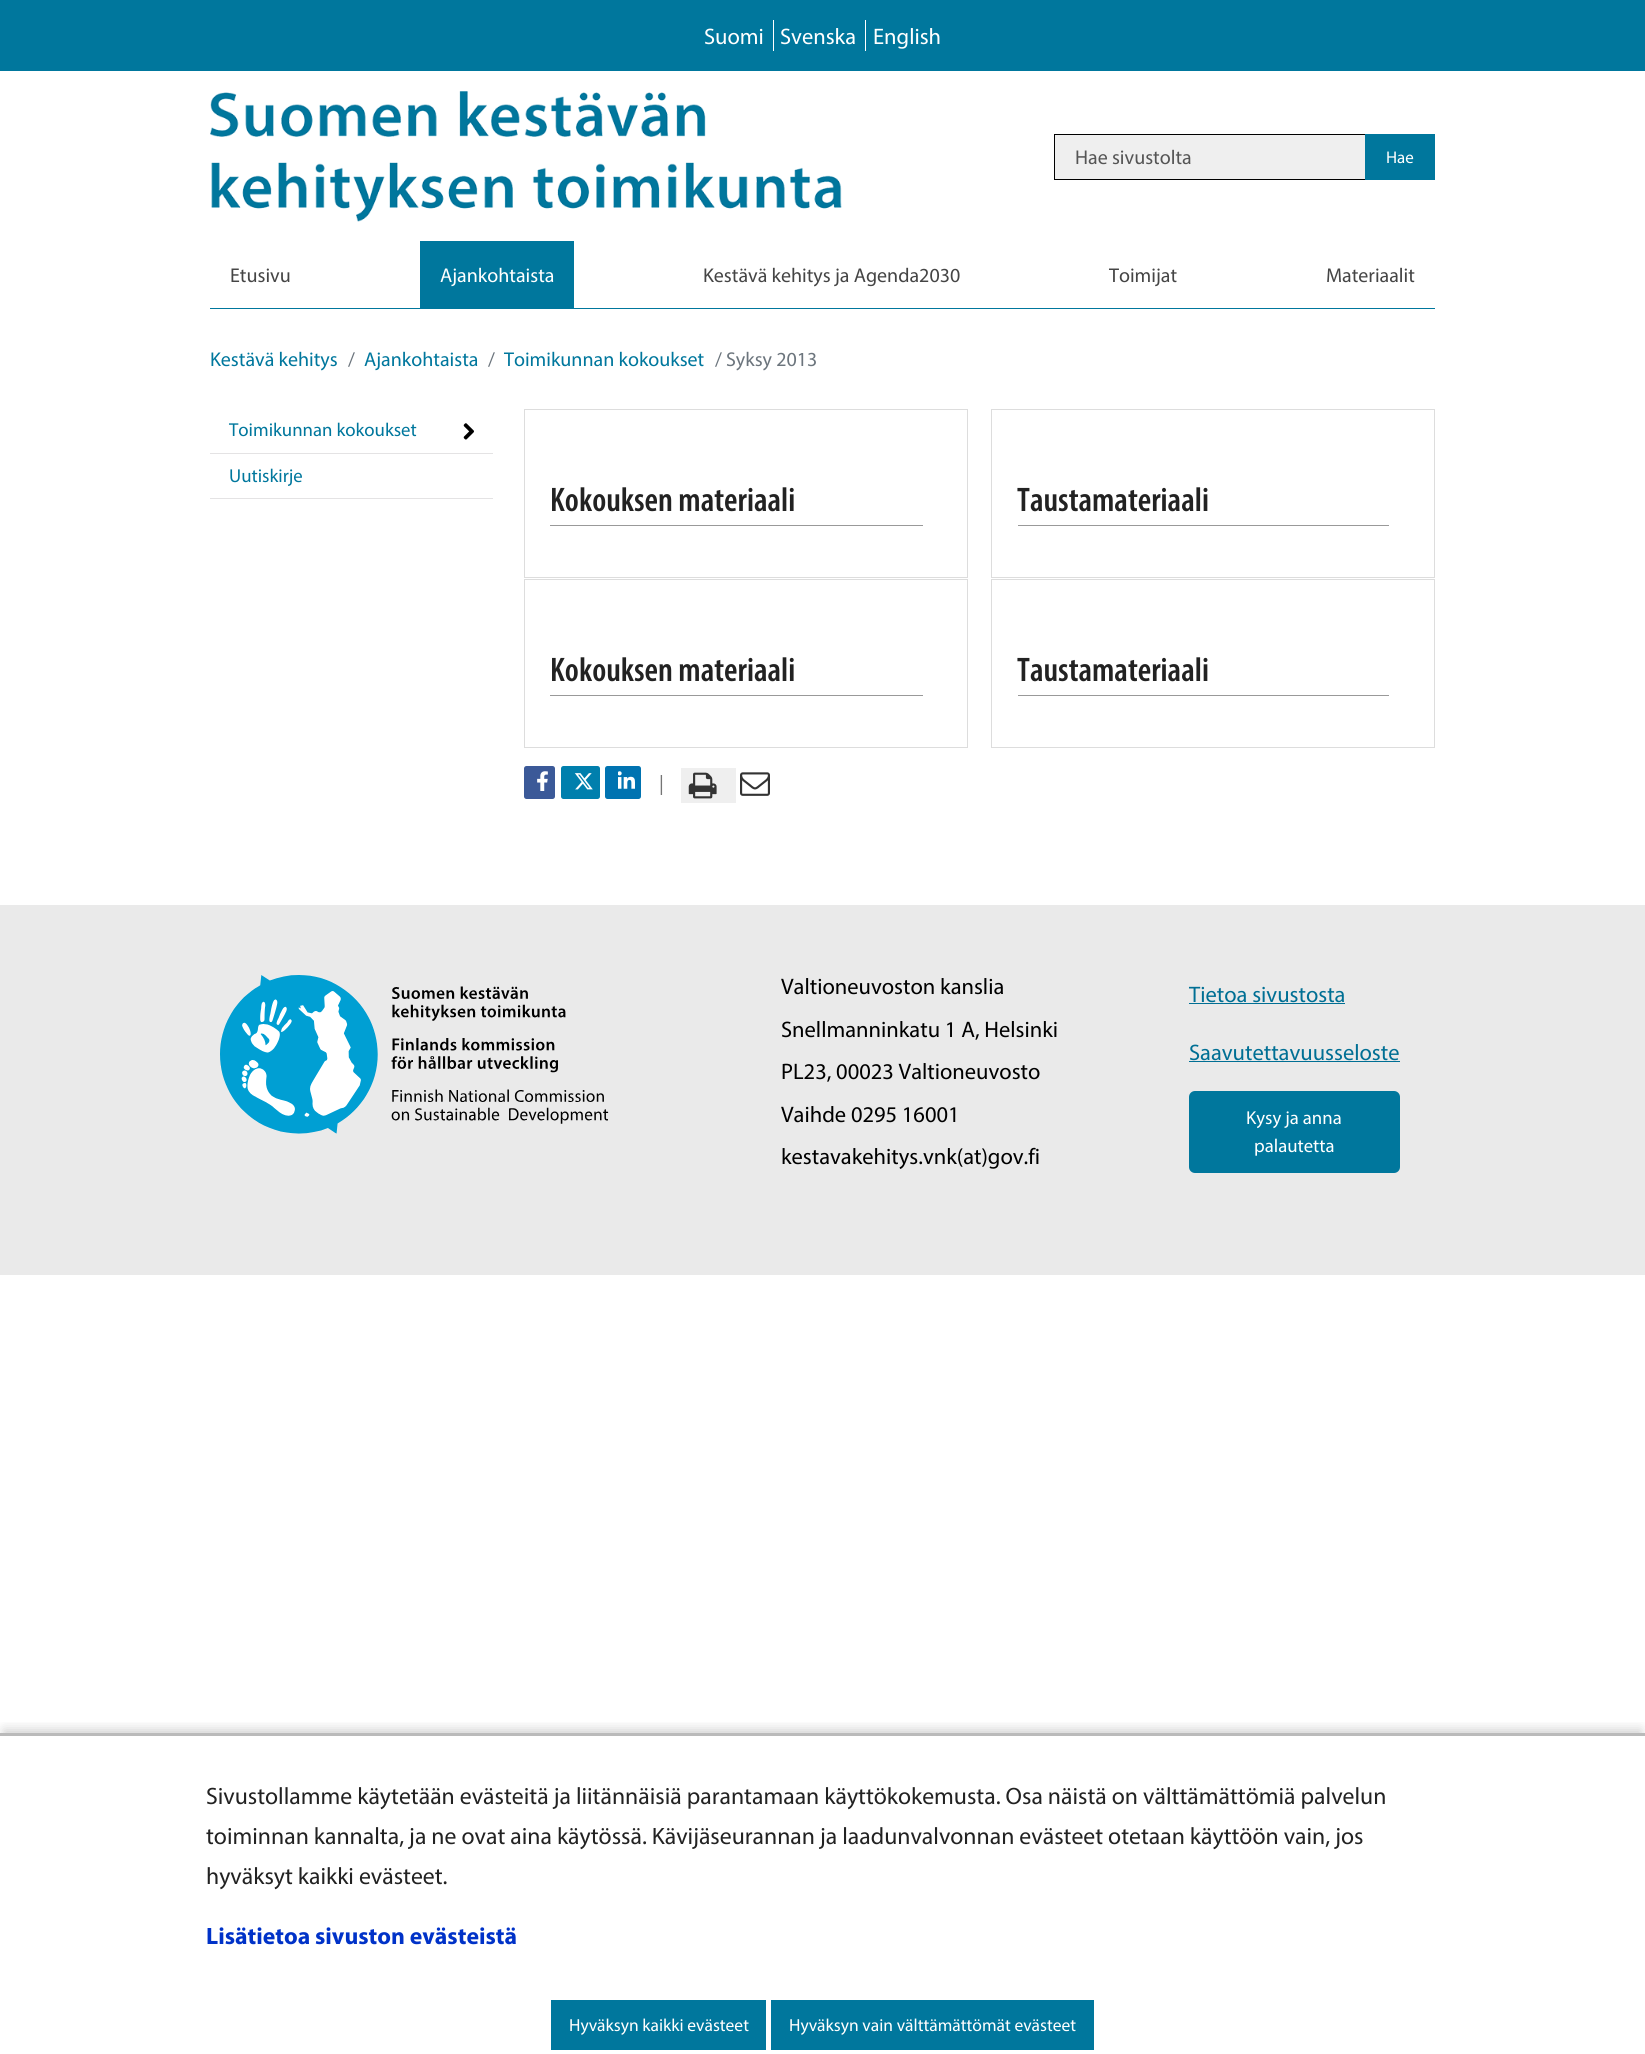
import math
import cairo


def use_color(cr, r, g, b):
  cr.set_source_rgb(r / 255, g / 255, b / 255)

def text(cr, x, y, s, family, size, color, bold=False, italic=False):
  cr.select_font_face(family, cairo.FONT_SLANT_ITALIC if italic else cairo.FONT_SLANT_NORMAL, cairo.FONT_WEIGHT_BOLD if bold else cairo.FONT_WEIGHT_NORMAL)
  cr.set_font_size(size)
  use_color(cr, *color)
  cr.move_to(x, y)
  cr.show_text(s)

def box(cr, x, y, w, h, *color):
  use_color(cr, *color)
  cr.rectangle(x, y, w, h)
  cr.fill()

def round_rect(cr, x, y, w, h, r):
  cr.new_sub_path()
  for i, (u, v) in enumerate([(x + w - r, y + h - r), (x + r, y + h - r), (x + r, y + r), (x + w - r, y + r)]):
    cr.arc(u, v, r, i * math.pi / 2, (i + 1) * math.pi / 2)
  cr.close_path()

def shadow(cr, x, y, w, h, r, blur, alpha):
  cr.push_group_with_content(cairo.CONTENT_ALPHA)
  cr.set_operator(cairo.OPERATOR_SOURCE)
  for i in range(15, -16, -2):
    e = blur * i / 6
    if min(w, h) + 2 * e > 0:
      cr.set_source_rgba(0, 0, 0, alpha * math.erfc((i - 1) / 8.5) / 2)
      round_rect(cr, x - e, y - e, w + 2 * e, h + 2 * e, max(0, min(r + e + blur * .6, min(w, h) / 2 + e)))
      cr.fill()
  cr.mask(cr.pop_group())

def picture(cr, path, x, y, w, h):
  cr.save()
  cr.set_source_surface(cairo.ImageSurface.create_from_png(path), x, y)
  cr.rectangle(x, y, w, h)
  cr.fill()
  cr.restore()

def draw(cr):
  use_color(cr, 255, 255, 255)
  cr.paint()
  box(cr, 0, 0, 1645, 71, 0, 119, 157)
  box(cr, 773, 20, 1, 31, 255, 255, 255)
  box(cr, 865, 20, 1, 31, 255, 255, 255)
  picture(cr, "img_01.png", 210, 91, 632, 131)
  use_color(cr, 239, 239, 239)
  cr.rectangle(1054.5, 134.5, 311, 45)
  cr.fill_preserve()
  use_color(cr, 0, 0, 0)
  cr.set_line_width(1)
  cr.stroke()
  box(cr, 1365, 134, 70, 46, 0, 119, 157)
  box(cr, 210, 308, 1225, 1, 0, 119, 157)
  box(cr, 420, 241, 154, 67, 0, 119, 157)
  box(cr, 210, 453, 283, 1, 228, 227, 228)
  picture(cr, "img_02.png", 463, 423, 11, 17)
  box(cr, 210, 498, 283, 1, 228, 227, 228)
  cr.rectangle(524.5, 409.5, 443, 168)
  use_color(cr, 221, 221, 221)
  cr.stroke()
  box(cr, 550, 525, 373, 1, 153, 153, 153)
  cr.rectangle(991.5, 409.5, 443, 168)
  use_color(cr, 221, 221, 221)
  cr.stroke()
  box(cr, 1018, 525, 371, 1, 153, 153, 153)
  cr.rectangle(524.5, 579.5, 443, 168)
  use_color(cr, 221, 221, 221)
  cr.stroke()
  box(cr, 550, 695, 373, 1, 153, 153, 153)
  cr.rectangle(991.5, 579.5, 443, 168)
  use_color(cr, 221, 221, 221)
  cr.stroke()
  box(cr, 1018, 695, 371, 1, 153, 153, 153)
  use_color(cr, 59, 89, 152)
  round_rect(cr, 524, 766, 31, 33, 2.5)
  cr.fill()
  picture(cr, "img_03.png", 537, 771, 11, 20)
  use_color(cr, 0, 127, 173)
  round_rect(cr, 561, 766, 39, 33, 2.5)
  cr.fill()
  picture(cr, "img_04.png", 574, 773, 19, 17)
  use_color(cr, 0, 115, 177)
  round_rect(cr, 605, 766, 36, 33, 2.5)
  cr.fill()
  picture(cr, "img_05.png", 618, 771, 17, 18)
  box(cr, 681, 768, 55, 35, 239, 239, 239)
  picture(cr, "img_06.png", 688, 772, 29, 27)
  picture(cr, "img_07.png", 740, 772, 30, 24)
  box(cr, 0, 905, 1645, 370, 234, 234, 234)
  picture(cr, "img_08.png", 220, 975, 389, 159)
  box(cr, 1189, 1003, 156, 1, 0, 111, 148)
  box(cr, 1189, 1061, 211, 1, 0, 111, 148)
  use_color(cr, 0, 119, 157)
  round_rect(cr, 1189, 1091, 211, 82, 6)
  cr.fill()
  cr.save()
  cr.rectangle(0, 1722, 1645, 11)
  cr.clip()
  use_color(cr, 0, 0, 0)
  shadow(cr, 4, 1730, 1637, 315, 0, 6, 0.2)
  cr.restore()
  box(cr, 0, 1733, 1645, 3, 186, 186, 186)
  box(cr, 551, 2000, 215, 50, 0, 119, 157)
  box(cr, 771, 2000, 323, 50, 0, 119, 157)
  text(cr, 704, 44, "Suomi", "Myriad", 22.5, (255, 255, 255))
  text(cr, 780, 44, "Svenska", "Myriad", 22.5, (255, 255, 255))
  text(cr, 873, 44, "English", "Myriad", 22.5, (255, 255, 255))
  text(cr, 1075, 164, "Hae sivustolta", "Myriad", 20, (85, 85, 85))
  text(cr, 1386, 163, "Hae", "Myriad", 17, (255, 255, 255))
  text(cr, 230, 282, "Etusivu", "Myriad", 20, (69, 69, 69))
  text(cr, 440, 282, "Ajankohtaista", "Myriad", 20, (255, 255, 255))
  text(cr, 703, 282, "Kestävä kehitys ja Agenda2030", "Myriad", 20, (69, 69, 69))
  text(cr, 1109, 282, "Toimijat", "Myriad", 20, (69, 69, 69))
  text(cr, 1326, 282, "Materiaalit", "Myriad", 20, (69, 69, 69))
  text(cr, 210, 366, "Kestävä kehitys", "Myriad", 20, (0, 119, 157))
  text(cr, 348, 366, "/", "Myriad", 20, (108, 117, 125))
  text(cr, 364, 366, "Ajankohtaista", "Myriad", 20, (0, 119, 157))
  text(cr, 488, 366, "/", "Myriad", 20, (108, 117, 125))
  text(cr, 504, 366, "Toimikunnan kokoukset", "Myriad", 20, (0, 119, 157))
  text(cr, 715, 366, "/", "Myriad", 20, (108, 117, 125))
  text(cr, 726, 366, "Syksy 2013", "Myriad", 20, (108, 117, 125))
  text(cr, 229, 436, "Toimikunnan kokoukset", "Myriad", 18.75, (0, 119, 157))
  text(cr, 229, 482, "Uutiskirje", "Myriad", 18.75, (0, 119, 157))
  text(cr, 550, 511, "Kokouksen materiaali", "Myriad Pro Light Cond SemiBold", 34.25, (34, 34, 34))
  text(cr, 1017, 511, "Taustamateriaali", "Myriad Pro Light Cond SemiBold", 34.25, (34, 34, 34))
  text(cr, 550, 681, "Kokouksen materiaali", "Myriad Pro Light Cond SemiBold", 34.25, (34, 34, 34))
  text(cr, 1017, 681, "Taustamateriaali", "Myriad Pro Light Cond SemiBold", 34.25, (34, 34, 34))
  text(cr, 659, 790, "|", "Myriad", 20, (117, 117, 117))
  text(cr, 781, 994, "Valtioneuvoston kanslia", "Myriad", 22.5, (0, 0, 0))
  text(cr, 781, 1037, "Snellmanninkatu 1 A, Helsinki", "Myriad", 22.5, (0, 0, 0))
  text(cr, 781, 1079, "PL23, 00023 Valtioneuvosto", "Myriad", 22.5, (0, 0, 0))
  text(cr, 781, 1122, "Vaihde 0295 16001", "Myriad", 22.5, (0, 0, 0))
  text(cr, 781, 1164, "kestavakehitys.vnk(at)gov.fi", "Myriad", 22.5, (0, 0, 0))
  text(cr, 1189, 1002, "Tietoa sivustosta", "Myriad", 22.5, (0, 111, 148))
  text(cr, 1189, 1060, "Saavutettavuusseloste", "Myriad", 22.5, (0, 111, 148))
  text(cr, 1246, 1124, "Kysy ja anna", "Myriad", 18.75, (255, 255, 255))
  text(cr, 1254, 1152, "palautetta", "Myriad", 18.75, (255, 255, 255))
  text(cr, 206, 1804, "Sivustollamme käytetään evästeitä ja liitännäisiä parantamaan käyttökokemusta. Osa näistä on välttämättömiä palvelun", "Myriad", 23.75, (34, 34, 34))
  text(cr, 206, 1844, "toiminnan kannalta, ja ne ovat aina käytössä. Kävijäseurannan ja laadunvalvonnan evästeet otetaan käyttöön vain, jos", "Myriad", 23.75, (34, 34, 34))
  text(cr, 206, 1884, "hyväksyt kaikki evästeet.", "Myriad", 23.75, (34, 34, 34))
  text(cr, 206, 1944, "Lisätietoa sivuston evästeistä", "Myriad", 23.75, (0, 50, 200), bold=True)
  text(cr, 569, 2031, "Hyväksyn kaikki evästeet", "Myriad", 17.5, (255, 255, 255))
  text(cr, 789, 2031, "Hyväksyn vain välttämättömät evästeet", "Myriad", 17.5, (255, 255, 255))


surface = cairo.ImageSurface(cairo.FORMAT_RGB24, 1645, 2054)
cr = cairo.Context(surface)
options = cairo.FontOptions()
options.set_hint_metrics(cairo.HINT_METRICS_OFF)
options.set_hint_style(cairo.HINT_STYLE_NONE)
cr.set_font_options(options)
cr.set_miter_limit(4)
draw(cr)
surface.write_to_png("out.png")
